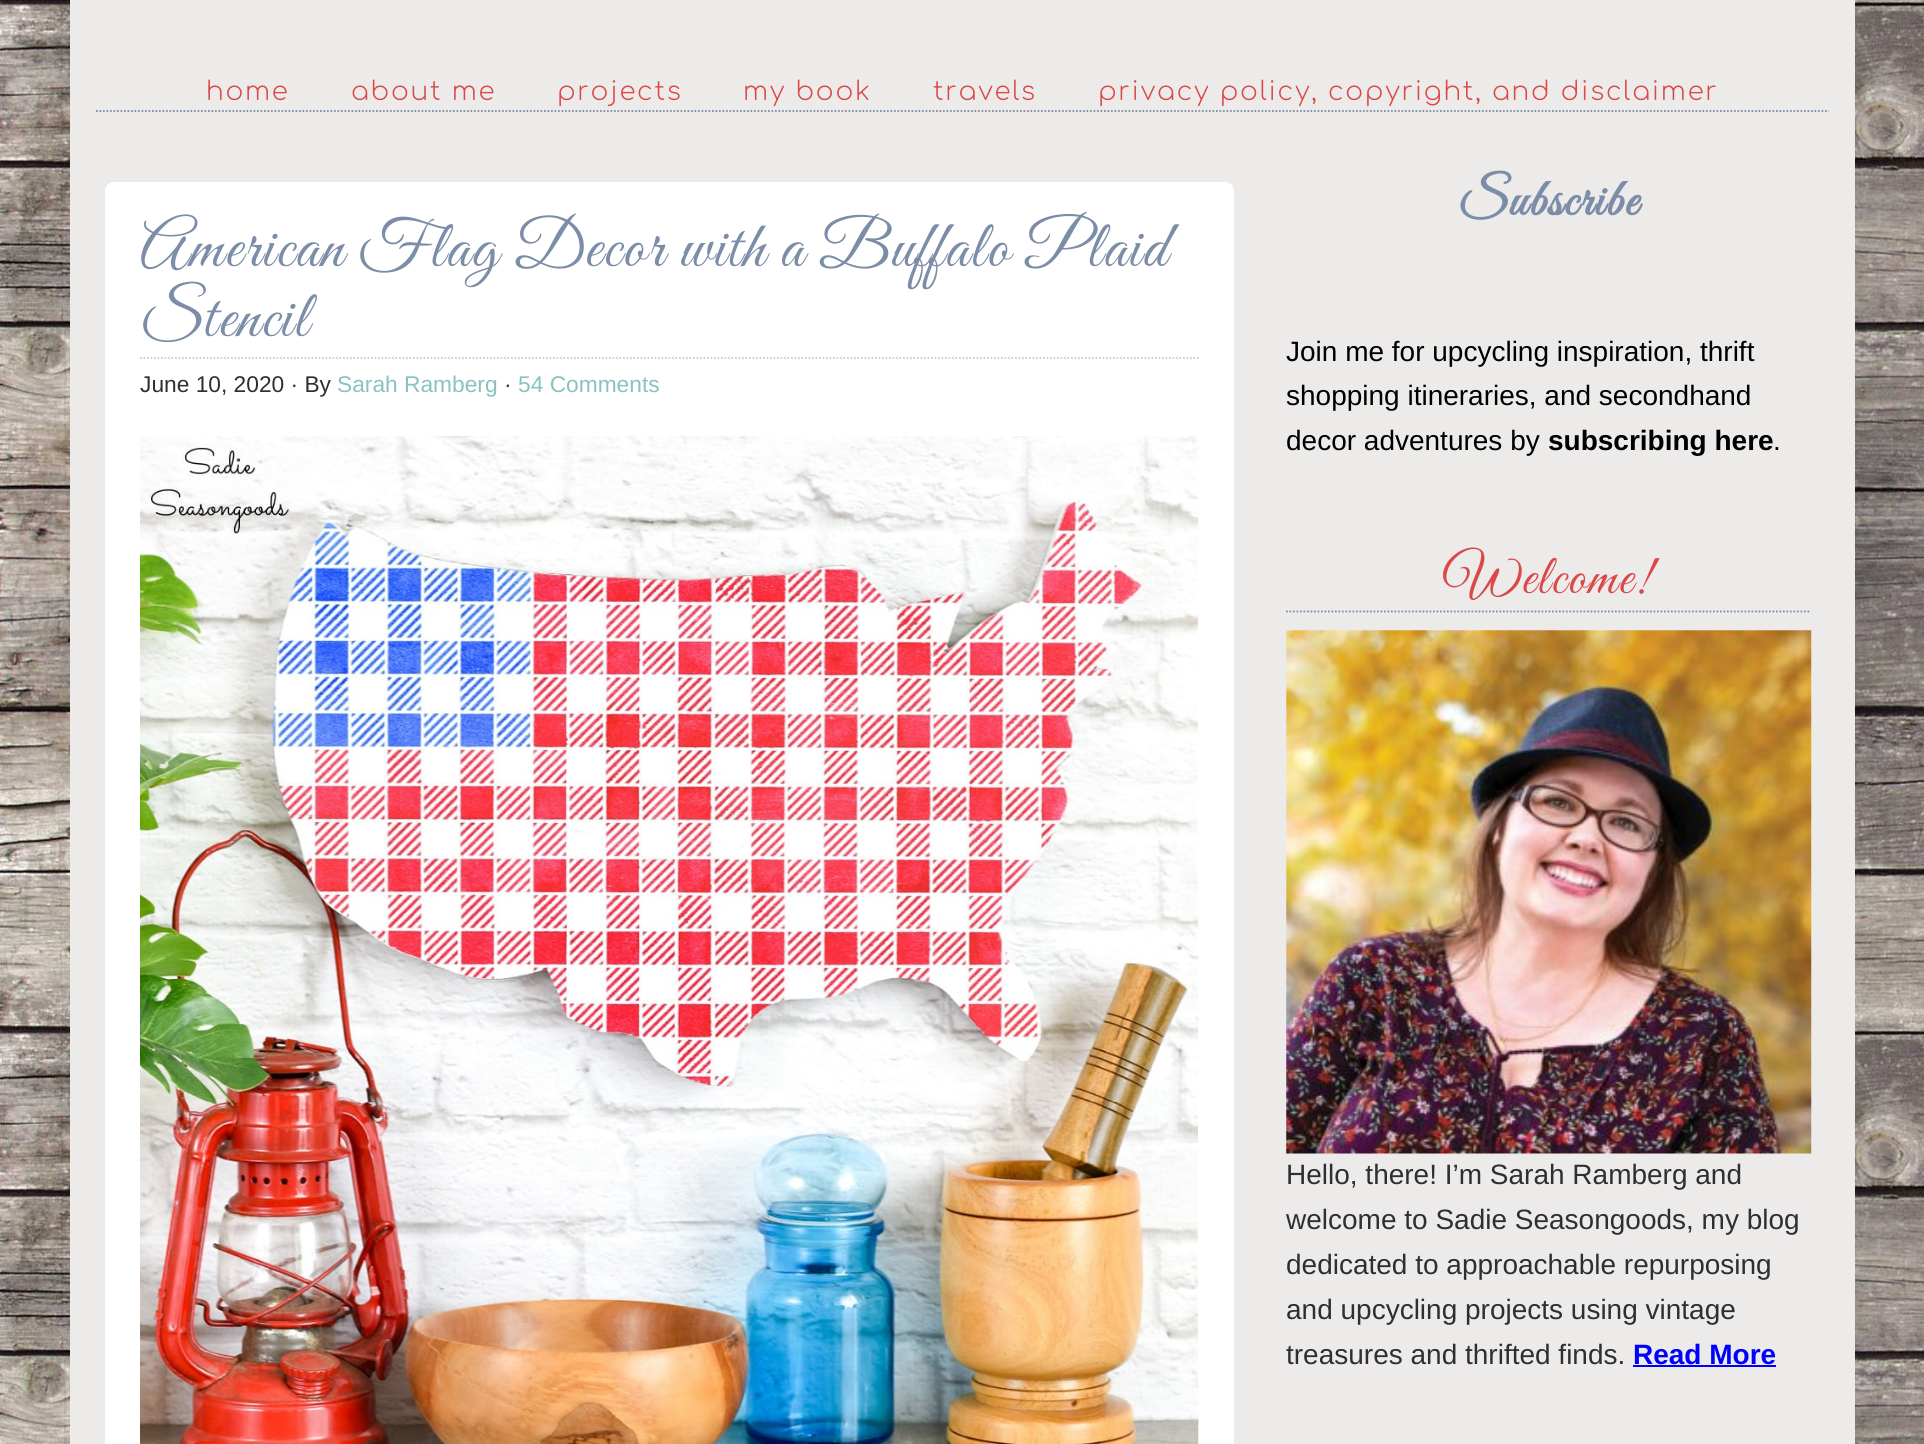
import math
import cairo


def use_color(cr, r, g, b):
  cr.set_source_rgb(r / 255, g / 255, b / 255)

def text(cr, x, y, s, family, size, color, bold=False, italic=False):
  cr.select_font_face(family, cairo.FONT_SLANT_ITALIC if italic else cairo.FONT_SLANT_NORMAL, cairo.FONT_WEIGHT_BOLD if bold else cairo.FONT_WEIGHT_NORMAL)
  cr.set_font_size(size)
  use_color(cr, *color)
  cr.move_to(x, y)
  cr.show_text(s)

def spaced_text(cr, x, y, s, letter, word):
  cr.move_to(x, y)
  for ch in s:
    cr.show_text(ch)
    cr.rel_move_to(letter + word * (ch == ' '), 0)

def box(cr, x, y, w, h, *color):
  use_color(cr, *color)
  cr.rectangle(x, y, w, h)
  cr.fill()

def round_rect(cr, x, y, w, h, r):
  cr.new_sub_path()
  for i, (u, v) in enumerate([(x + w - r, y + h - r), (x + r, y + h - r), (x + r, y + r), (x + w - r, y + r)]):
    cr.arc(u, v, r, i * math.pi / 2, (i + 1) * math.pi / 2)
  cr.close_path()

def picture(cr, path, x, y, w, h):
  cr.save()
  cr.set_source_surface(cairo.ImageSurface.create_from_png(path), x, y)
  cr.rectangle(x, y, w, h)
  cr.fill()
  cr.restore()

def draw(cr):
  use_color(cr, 255, 255, 255)
  cr.paint()
  picture(cr, "img_01.png", 0, 0, 1924, 1444)
  box(cr, 70, 0, 1785, 1444, 237, 235, 234)
  cr.new_path()
  cr.move_to(96, 111)
  cr.line_to(1829, 111)
  use_color(cr, 124, 141, 168)
  cr.set_line_width(1.8)
  cr.set_dash([1.75, 1.75])
  cr.stroke()
  use_color(cr, 255, 255, 255)
  round_rect(cr, 105, 182, 1129, 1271, 9)
  cr.fill()
  cr.new_path()
  cr.move_to(140, 358)
  cr.line_to(1199, 358)
  use_color(cr, 204, 204, 204)
  cr.stroke()
  picture(cr, "img_02.png", 140, 436, 1059, 1008)
  cr.new_path()
  cr.move_to(1286, 611.5)
  cr.line_to(1811, 611.5)
  use_color(cr, 124, 141, 168)
  cr.stroke()
  picture(cr, "img_03.png", 1286, 630, 526, 524)
  box(cr, 1633, 1365, 143, 2, 0, 0, 255)
  cr.select_font_face("Comfortaa Light")
  cr.set_font_size(26.25)
  use_color(cr, 217, 73, 73)
  spaced_text(cr, 206, 100, "home", 1.75, 0)
  spaced_text(cr, 351, 100, "about me", 1.75, 0)
  spaced_text(cr, 557, 100, "projects", 1.75, 0)
  spaced_text(cr, 743, 100, "my book", 1.75, 0)
  spaced_text(cr, 933, 100, "travels", 1.75, 0)
  spaced_text(cr, 1098, 100, "privacy policy, copyright, and disclaimer", 1.75, 0)
  cr.select_font_face("Great Vibes")
  cr.set_font_size(66.5)
  use_color(cr, 124, 141, 168)
  spaced_text(cr, 140, 266, "American Flag Decor with a Buffalo Plaid", 1.75, 0.25)
  spaced_text(cr, 140, 336, "Stencil", 1.75, 0)
  text(cr, 140, 392, "June 10, 2020 · By", "Liberation Sans", 22.75, (47, 47, 50))
  text(cr, 337, 392, "Sarah Ramberg", "Liberation Sans", 22.75, (137, 194, 191))
  text(cr, 504, 392, "·", "Liberation Sans", 22.75, (47, 47, 50))
  text(cr, 518, 392, "54 Comments", "Liberation Sans", 22.75, (137, 194, 191))
  cr.select_font_face("Great Vibes", cairo.FONT_SLANT_NORMAL, cairo.FONT_WEIGHT_BOLD)
  cr.set_font_size(52.5)
  use_color(cr, 124, 141, 168)
  spaced_text(cr, 1458, 215, "Subscribe", 1.75, 0)
  text(cr, 1286, 361, "Join me for upcycling inspiration, thrift", "Liberation Sans", 28, (0, 0, 0))
  text(cr, 1286, 405, "shopping itineraries, and secondhand", "Liberation Sans", 28, (0, 0, 0))
  text(cr, 1286, 450, "decor adventures by", "Liberation Sans", 28, (0, 0, 0))
  text(cr, 1548, 450, "subscribing here", "Liberation Sans", 28, (0, 0, 0), bold=True)
  text(cr, 1773, 450, ".", "Liberation Sans", 28, (0, 0, 0))
  cr.select_font_face("Great Vibes")
  cr.set_font_size(56)
  use_color(cr, 217, 73, 73)
  spaced_text(cr, 1444, 593, "Welcome!", 1.75, 0)
  text(cr, 1286, 1184, "Hello, there! I’m Sarah Ramberg and", "Liberation Sans", 28, (47, 47, 50))
  text(cr, 1286, 1229, "welcome to Sadie Seasongoods, my blog", "Liberation Sans", 28, (47, 47, 50))
  text(cr, 1286, 1274, "dedicated to approachable repurposing", "Liberation Sans", 28, (47, 47, 50))
  text(cr, 1286, 1319, "and upcycling projects using vintage", "Liberation Sans", 28, (47, 47, 50))
  text(cr, 1286, 1364, "treasures and thrifted finds.", "Liberation Sans", 28, (47, 47, 50))
  text(cr, 1633, 1364, "Read More", "Liberation Sans", 28, (0, 0, 255), bold=True)


surface = cairo.ImageSurface(cairo.FORMAT_RGB24, 1924, 1444)
cr = cairo.Context(surface)
options = cairo.FontOptions()
options.set_hint_metrics(cairo.HINT_METRICS_OFF)
options.set_hint_style(cairo.HINT_STYLE_NONE)
cr.set_font_options(options)
cr.set_miter_limit(4)
draw(cr)
surface.write_to_png("out.png")
